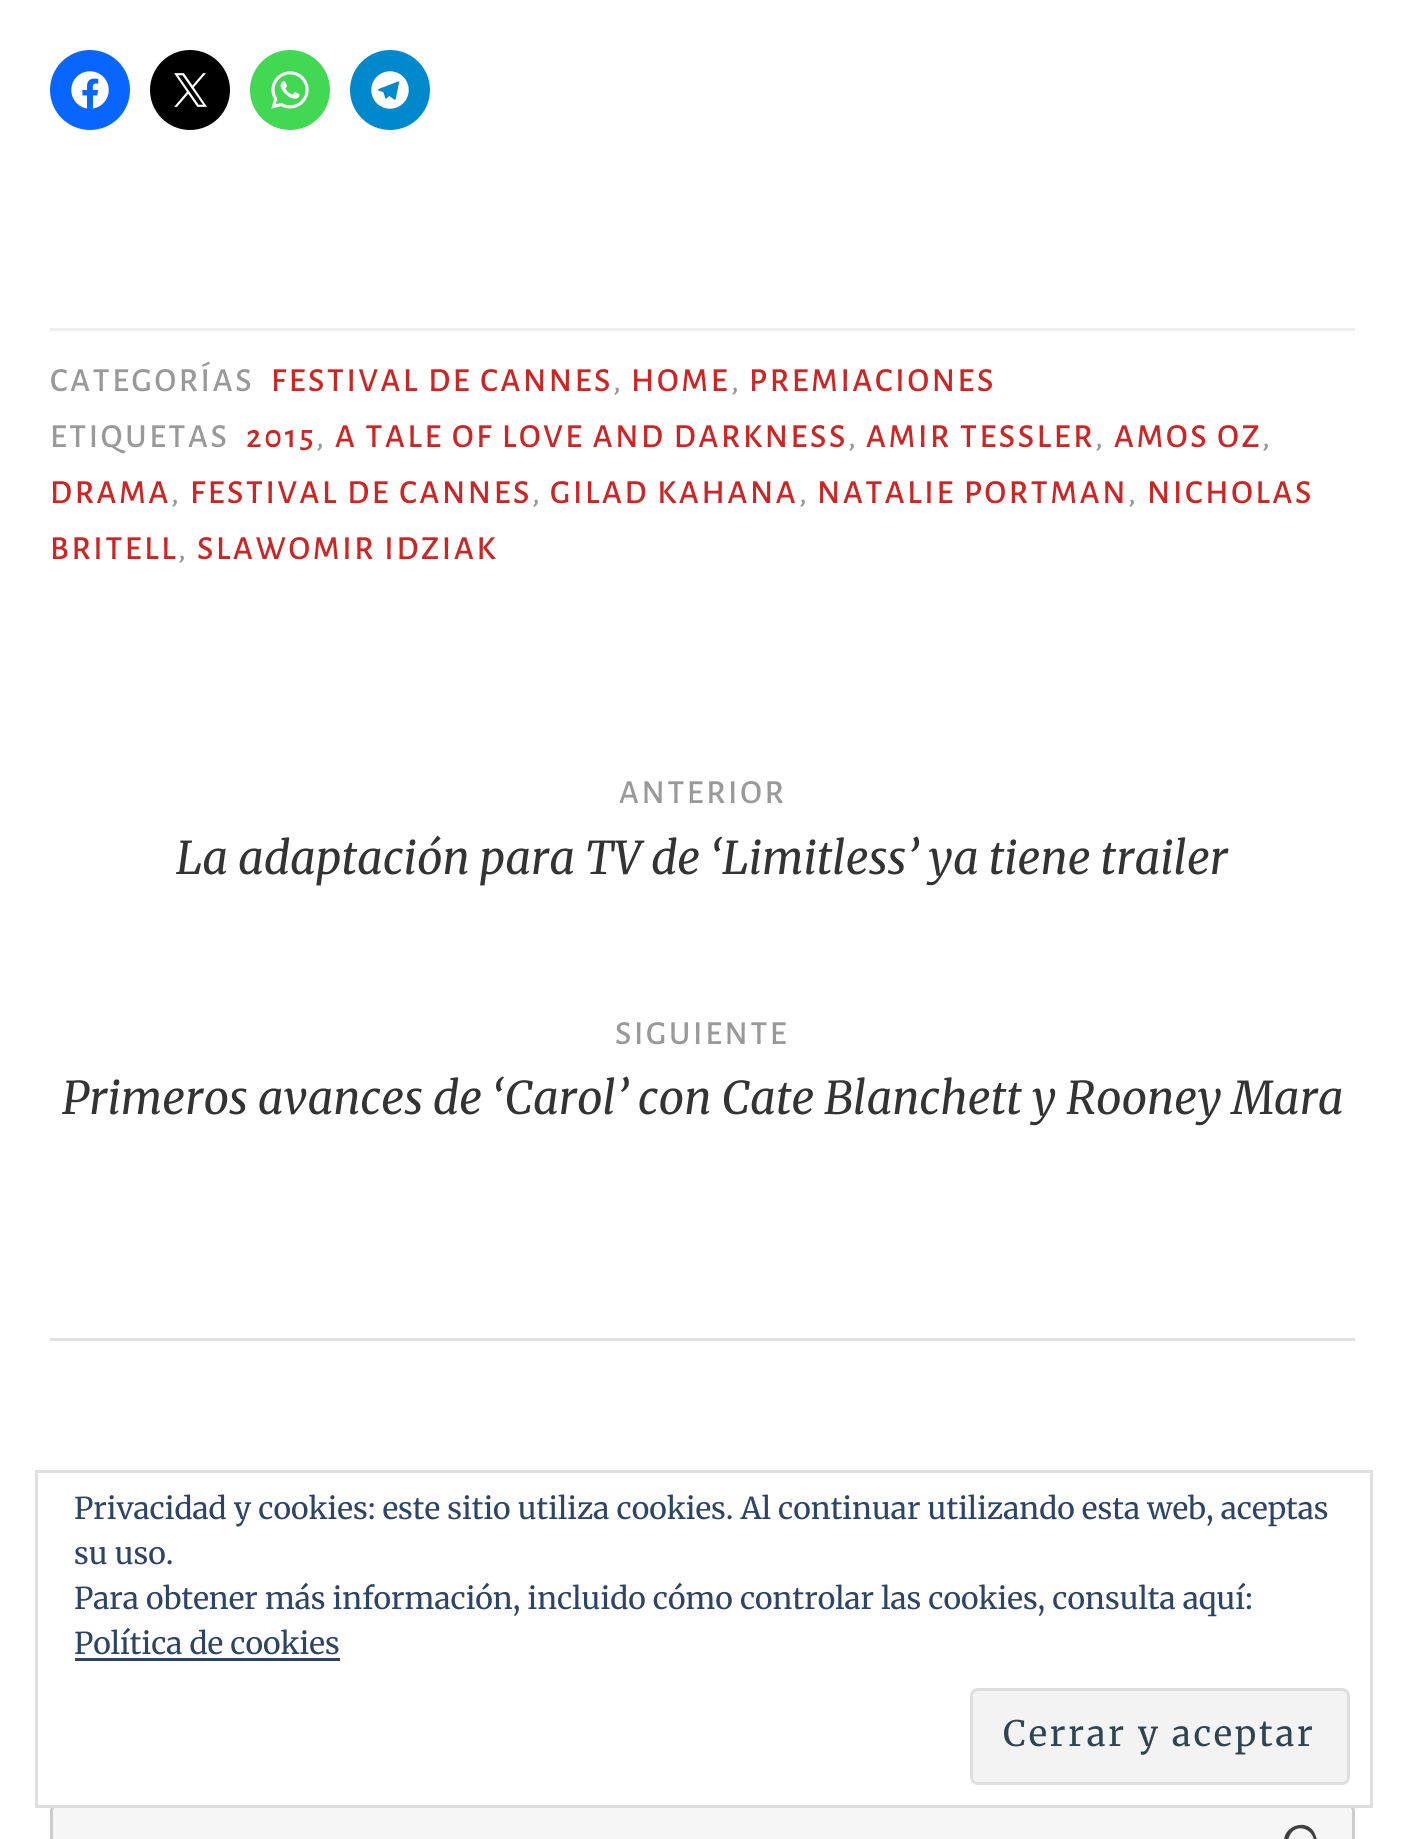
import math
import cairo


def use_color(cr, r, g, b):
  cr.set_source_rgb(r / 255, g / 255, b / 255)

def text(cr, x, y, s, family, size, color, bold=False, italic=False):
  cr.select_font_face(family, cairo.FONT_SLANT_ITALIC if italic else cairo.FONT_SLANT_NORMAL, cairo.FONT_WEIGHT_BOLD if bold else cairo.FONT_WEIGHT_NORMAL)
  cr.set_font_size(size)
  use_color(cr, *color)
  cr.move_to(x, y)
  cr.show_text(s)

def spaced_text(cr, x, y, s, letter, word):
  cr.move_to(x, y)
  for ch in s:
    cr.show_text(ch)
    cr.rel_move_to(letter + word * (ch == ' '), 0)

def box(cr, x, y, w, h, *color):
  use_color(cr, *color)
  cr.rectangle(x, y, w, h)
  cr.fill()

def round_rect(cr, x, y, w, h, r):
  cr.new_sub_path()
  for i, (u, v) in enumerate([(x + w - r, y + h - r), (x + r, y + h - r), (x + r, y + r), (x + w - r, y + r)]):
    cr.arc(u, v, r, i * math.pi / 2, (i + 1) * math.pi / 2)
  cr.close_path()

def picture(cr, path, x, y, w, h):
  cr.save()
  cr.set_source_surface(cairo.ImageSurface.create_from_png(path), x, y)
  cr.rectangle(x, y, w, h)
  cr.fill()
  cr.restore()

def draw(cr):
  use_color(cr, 255, 255, 255)
  cr.paint()
  use_color(cr, 8, 102, 255)
  cr.arc(90, 90, 40, 0, 2 * math.pi)
  cr.fill()
  picture(cr, "img_01.png", 71, 71, 38, 38)
  use_color(cr, 0, 0, 0)
  cr.arc(190, 90, 40, 0, 2 * math.pi)
  cr.fill()
  picture(cr, "img_02.png", 174, 73, 33, 34)
  use_color(cr, 67, 216, 84)
  cr.arc(290, 90, 40, 0, 2 * math.pi)
  cr.fill()
  picture(cr, "img_03.png", 271, 71, 38, 38)
  use_color(cr, 0, 136, 204)
  cr.arc(390, 90, 40, 0, 2 * math.pi)
  cr.fill()
  picture(cr, "img_04.png", 371, 71, 38, 38)
  box(cr, 50, 328, 1305, 3, 239, 239, 239)
  box(cr, 50, 1338, 1305, 3, 225, 225, 225)
  use_color(cr, 246, 246, 246)
  round_rect(cr, 51.5, 1804.5, 1302, 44, 6.5)
  cr.fill_preserve()
  use_color(cr, 204, 204, 204)
  cr.set_line_width(3)
  cr.stroke()
  use_color(cr, 64, 64, 64)
  cr.new_path()
  cr.move_to(1328, 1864)
  cr.line_to(1324, 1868)
  cr.line_to(1310, 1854)
  cr.curve_to(1302, 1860, 1291, 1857, 1286, 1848)
  cr.curve_to(1276, 1827, 1310, 1814, 1316, 1837)
  cr.curve_to(1318, 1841, 1317, 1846, 1314, 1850)
  cr.close_path()
  cr.move_to(1290, 1835)
  cr.curve_to(1282, 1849, 1303, 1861, 1312, 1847)
  cr.curve_to(1320, 1833, 1298, 1820, 1290, 1835)
  cr.close_path()
  cr.fill()
  box(cr, 53, 1803, 1299, 2, 255, 255, 255)
  cr.rectangle(36.5, 1471.5, 1335, 335)
  use_color(cr, 222, 222, 222)
  cr.stroke()
  box(cr, 75, 1658, 265, 3, 46, 68, 103)
  use_color(cr, 243, 243, 243)
  round_rect(cr, 971.5, 1689.5, 377, 94, 6.5)
  cr.fill_preserve()
  use_color(cr, 222, 222, 222)
  cr.stroke()
  cr.select_font_face("Alegreya Sans Medium")
  cr.set_font_size(33.75)
  use_color(cr, 153, 153, 153)
  spaced_text(cr, 50, 391, "CATEGORÍAS", 2.7, 0)
  use_color(cr, 207, 36, 36)
  spaced_text(cr, 271, 391, "FESTIVAL DE CANNES", 2.7, 0)
  use_color(cr, 153, 153, 153)
  spaced_text(cr, 613, 391, ",", 2.7, 0)
  use_color(cr, 207, 36, 36)
  spaced_text(cr, 631, 391, "HOME", 2.7, 0)
  use_color(cr, 153, 153, 153)
  spaced_text(cr, 731, 391, ",", 2.7, 0)
  use_color(cr, 207, 36, 36)
  spaced_text(cr, 749, 391, "PREMIACIONES", 2.7, 0)
  use_color(cr, 153, 153, 153)
  spaced_text(cr, 50, 447, "ETIQUETAS", 2.7, 0)
  use_color(cr, 207, 36, 36)
  spaced_text(cr, 246, 447, "2015", 2.7, 0)
  use_color(cr, 153, 153, 153)
  spaced_text(cr, 316, 447, ",", 2.7, 0)
  use_color(cr, 207, 36, 36)
  spaced_text(cr, 335, 447, "A TALE OF LOVE AND DARKNESS", 2.7, 0)
  use_color(cr, 153, 153, 153)
  spaced_text(cr, 848, 447, ",", 2.7, 0)
  use_color(cr, 207, 36, 36)
  spaced_text(cr, 866, 447, "AMIR TESSLER", 2.7, 0)
  use_color(cr, 153, 153, 153)
  spaced_text(cr, 1095, 447, ",", 2.7, 0)
  use_color(cr, 207, 36, 36)
  spaced_text(cr, 1114, 447, "AMOS OZ", 2.7, 0)
  use_color(cr, 153, 153, 153)
  spaced_text(cr, 1262, 447, ",", 2.7, 0)
  use_color(cr, 207, 36, 36)
  spaced_text(cr, 50, 503, "DRAMA", 2.7, 0)
  use_color(cr, 153, 153, 153)
  spaced_text(cr, 171, 503, ",", 2.7, 0)
  use_color(cr, 207, 36, 36)
  spaced_text(cr, 190, 503, "FESTIVAL DE CANNES", 2.7, 0)
  use_color(cr, 153, 153, 153)
  spaced_text(cr, 532, 503, ",", 2.7, 0)
  use_color(cr, 207, 36, 36)
  spaced_text(cr, 550, 503, "GILAD KAHANA", 2.7, 0)
  use_color(cr, 153, 153, 153)
  spaced_text(cr, 799, 503, ",", 2.7, 0)
  use_color(cr, 207, 36, 36)
  spaced_text(cr, 817, 503, "NATALIE PORTMAN", 2.7, 0)
  use_color(cr, 153, 153, 153)
  spaced_text(cr, 1128, 503, ",", 2.7, 0)
  use_color(cr, 207, 36, 36)
  spaced_text(cr, 1147, 503, "NICHOLAS", 2.7, 0)
  spaced_text(cr, 50, 559, "BRITELL", 2.7, 0)
  use_color(cr, 153, 153, 153)
  spaced_text(cr, 178, 559, ",", 2.7, 0)
  use_color(cr, 207, 36, 36)
  spaced_text(cr, 197, 559, "SLAWOMIR IDZIAK", 2.7, 0)
  use_color(cr, 153, 153, 153)
  spaced_text(cr, 619, 803, "ANTERIOR", 2.7, 0)
  text(cr, 176, 874, "La adaptación para TV de ‘Limitless’ ya tiene trailer", "Merriweather", 45, (51, 51, 51), italic=True)
  cr.select_font_face("Alegreya Sans Medium")
  cr.set_font_size(33.75)
  use_color(cr, 153, 153, 153)
  spaced_text(cr, 615, 1044, "SIGUIENTE", 2.7, 0)
  text(cr, 62, 1114, "Primeros avances de ‘Carol’ con Cate Blanchett y Rooney Mara", "Merriweather", 45, (51, 51, 51), italic=True)
  text(cr, 74, 1519, "Privacidad y cookies: este sitio utiliza cookies. Al continuar utilizando esta web, aceptas", "Merriweather", 30, (46, 68, 103))
  text(cr, 74, 1564, "su uso.", "Merriweather", 30, (46, 68, 103))
  text(cr, 74, 1609, "Para obtener más información, incluido cómo controlar las cookies, consulta aquí:", "Merriweather", 30, (46, 68, 103))
  text(cr, 74, 1654, "Política de cookies", "Merriweather", 30, (46, 68, 103))
  cr.set_font_size(35)
  use_color(cr, 46, 68, 83)
  spaced_text(cr, 1003, 1746, "Cerrar y aceptar", 2.75, 0)


surface = cairo.ImageSurface(cairo.FORMAT_RGB24, 1403, 1839)
cr = cairo.Context(surface)
options = cairo.FontOptions()
options.set_hint_metrics(cairo.HINT_METRICS_OFF)
options.set_hint_style(cairo.HINT_STYLE_NONE)
cr.set_font_options(options)
cr.set_miter_limit(4)
draw(cr)
surface.write_to_png("out.png")
